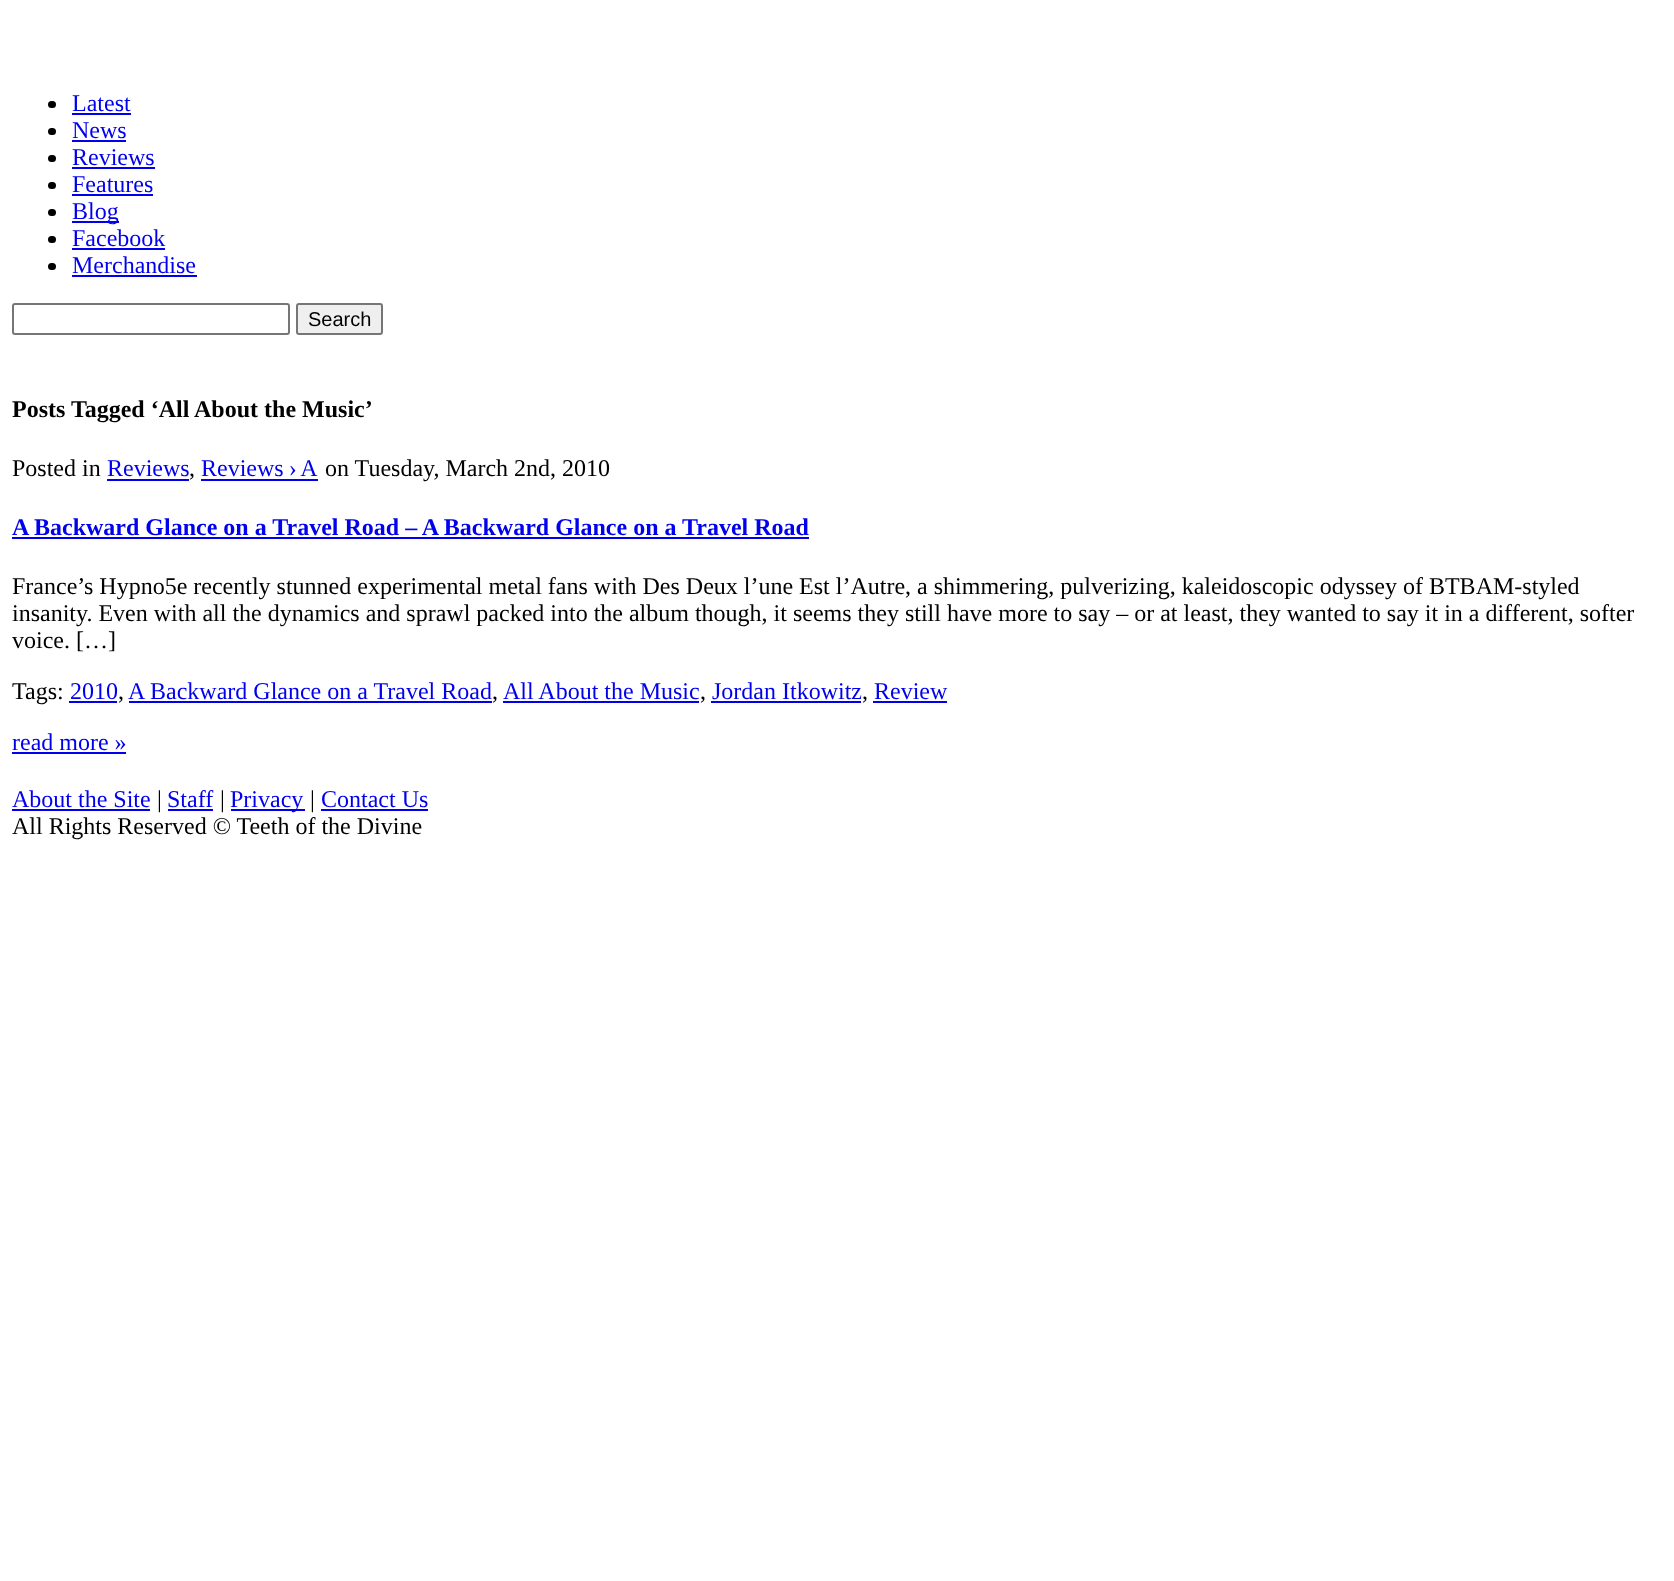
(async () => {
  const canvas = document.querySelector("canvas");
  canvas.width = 1674;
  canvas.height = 1581;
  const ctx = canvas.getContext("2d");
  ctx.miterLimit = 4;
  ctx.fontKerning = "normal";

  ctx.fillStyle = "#ffffff";
  ctx.fillRect(0, 0, 1674, 1581);
  ctx.fillStyle = "#000000";
  ctx.beginPath();
  ctx.roundRect(48, 101, 8, 7, 3.5);
  ctx.fill();
  ctx.fillStyle = "#0000ee";
  ctx.fillRect(72, 113, 59, 2);
  ctx.fillStyle = "#000000";
  ctx.beginPath();
  ctx.roundRect(48, 128, 8, 7, 3.5);
  ctx.fill();
  ctx.fillStyle = "#0000ee";
  ctx.fillRect(72, 140, 54, 2);
  ctx.fillStyle = "#000000";
  ctx.beginPath();
  ctx.roundRect(48, 155, 8, 7, 3.5);
  ctx.fill();
  ctx.fillStyle = "#0000ee";
  ctx.fillRect(72, 167, 83, 2);
  ctx.fillStyle = "#000000";
  ctx.beginPath();
  ctx.roundRect(48, 182, 8, 7, 3.5);
  ctx.fill();
  ctx.fillStyle = "#0000ee";
  ctx.fillRect(72, 194, 81, 2);
  ctx.fillStyle = "#000000";
  ctx.beginPath();
  ctx.roundRect(48, 209, 8, 7, 3.5);
  ctx.fill();
  ctx.fillStyle = "#0000ee";
  ctx.fillRect(72, 221, 47, 2);
  ctx.fillStyle = "#000000";
  ctx.beginPath();
  ctx.roundRect(48, 236, 8, 7, 3.5);
  ctx.fill();
  ctx.fillStyle = "#0000ee";
  ctx.fillRect(72, 248, 93, 2);
  ctx.fillStyle = "#000000";
  ctx.beginPath();
  ctx.roundRect(48, 263, 8, 7, 3.5);
  ctx.fill();
  ctx.fillStyle = "#0000ee";
  ctx.fillRect(72, 275, 125, 2);
  ctx.beginPath();
  ctx.roundRect(13, 304, 276, 30, 2);
  ctx.strokeStyle = "#767676";
  ctx.lineWidth = 2;
  ctx.stroke();
  ctx.fillStyle = "#efefef";
  ctx.beginPath();
  ctx.roundRect(297, 304, 85, 30, 2);
  ctx.fill();
  ctx.stroke();
  for (const [x, y, w, h, color] of [
    [107, 479, 82, 2, "#0000ee"],
    [201, 479, 117, 2, "#0000ee"],
    [12, 537, 797, 2, "#0000ee"],
    [69, 701, 48, 2, "#0000ee"],
    [129, 701, 363, 2, "#0000ee"],
    [503, 701, 196, 2, "#0000ee"],
    [711, 701, 150, 2, "#0000ee"],
    [873, 701, 74, 2, "#0000ee"],
    [12, 752, 114, 2, "#0000ee"],
    [12, 809, 138, 2, "#0000ee"],
    [168, 809, 45, 2, "#0000ee"],
    [231, 809, 74, 2, "#0000ee"],
    [321, 809, 107, 2, "#0000ee"],
  ]) {
    ctx.fillStyle = color;
    ctx.fillRect(x, y, w, h);
  }
  ctx.font = "24px Liberation Serif";
  for (const [text, x, y] of [
    ["Latest", 72, 111],
    ["News", 72, 138],
    ["Reviews", 72, 165],
    ["Features", 72, 192],
    ["Blog", 72, 219],
    ["Facebook", 72, 246],
    ["Merchandise", 72, 273],
  ]) {
    ctx.fillText(text, x, y);
  }
  ctx.font = "20px Liberation Sans";
  ctx.fillStyle = "#000000";
  ctx.fillText("Search", 308, 326);
  ctx.font = "bold 24px Liberation Serif";
  ctx.fillText("Posts Tagged ‘All About the Music’", 12, 417);
  ctx.font = "24px Liberation Serif";
  ctx.fillText("Posted in", 12, 476);
  ctx.fillStyle = "#0000ee";
  ctx.fillText("Reviews", 107, 476);
  ctx.fillStyle = "#000000";
  ctx.fillText(",", 189, 476);
  ctx.wordSpacing = "-1px";
  ctx.fillStyle = "#0000ee";
  ctx.fillText("Reviews › A", 201, 476);
  ctx.wordSpacing = "0px";
  ctx.fillStyle = "#000000";
  ctx.fillText("on Tuesday, March 2nd, 2010", 325, 476);
  ctx.font = "bold 24px Liberation Serif";
  ctx.fillStyle = "#0000ee";
  ctx.fillText("A Backward Glance on a Travel Road – A Backward Glance on a Travel Road", 12, 535);
  ctx.font = "24px Liberation Serif";
  ctx.fillStyle = "#000000";
  for (const [text, x, y] of [
    ["France’s Hypno5e recently stunned experimental metal fans with Des Deux l’une Est l’Autre, a shimmering, pulverizing, kaleidoscopic odyssey of BTBAM-styled", 12, 594],
    ["insanity. Even with all the dynamics and sprawl packed into the album though, it seems they still have more to say – or at least, they wanted to say it in a different, softer", 12, 621],
    ["voice. […]", 12, 648],
    ["Tags:", 12, 699],
  ]) {
    ctx.fillText(text, x, y);
  }
  ctx.fillStyle = "#0000ee";
  ctx.fillText("2010", 70, 699);
  ctx.fillStyle = "#000000";
  ctx.fillText(",", 118, 699);
  ctx.fillStyle = "#0000ee";
  ctx.fillText("A Backward Glance on a Travel Road", 128, 699);
  ctx.fillStyle = "#000000";
  ctx.fillText(",", 492, 699);
  ctx.fillStyle = "#0000ee";
  ctx.fillText("All About the Music", 503, 699);
  ctx.fillStyle = "#000000";
  ctx.fillText(",", 700, 699);
  ctx.fillStyle = "#0000ee";
  ctx.fillText("Jordan Itkowitz", 712, 699);
  ctx.fillStyle = "#000000";
  ctx.fillText(",", 862, 699);
  ctx.fillStyle = "#0000ee";
  for (const [text, x, y] of [
    ["Review", 874, 699],
    ["read more »", 12, 750],
    ["About the Site", 12, 807],
  ]) {
    ctx.fillText(text, x, y);
  }
  ctx.fillStyle = "#000000";
  ctx.fillText("|", 157, 807);
  ctx.fillStyle = "#0000ee";
  ctx.fillText("Staff", 167, 807);
  ctx.fillStyle = "#000000";
  ctx.fillText("|", 220, 807);
  ctx.fillStyle = "#0000ee";
  ctx.fillText("Privacy", 230, 807);
  ctx.fillStyle = "#000000";
  ctx.fillText("|", 310, 807);
  ctx.fillStyle = "#0000ee";
  ctx.fillText("Contact Us", 321, 807);
  ctx.fillStyle = "#000000";
  ctx.fillText("All Rights Reserved © Teeth of the Divine", 12, 834);
})();
